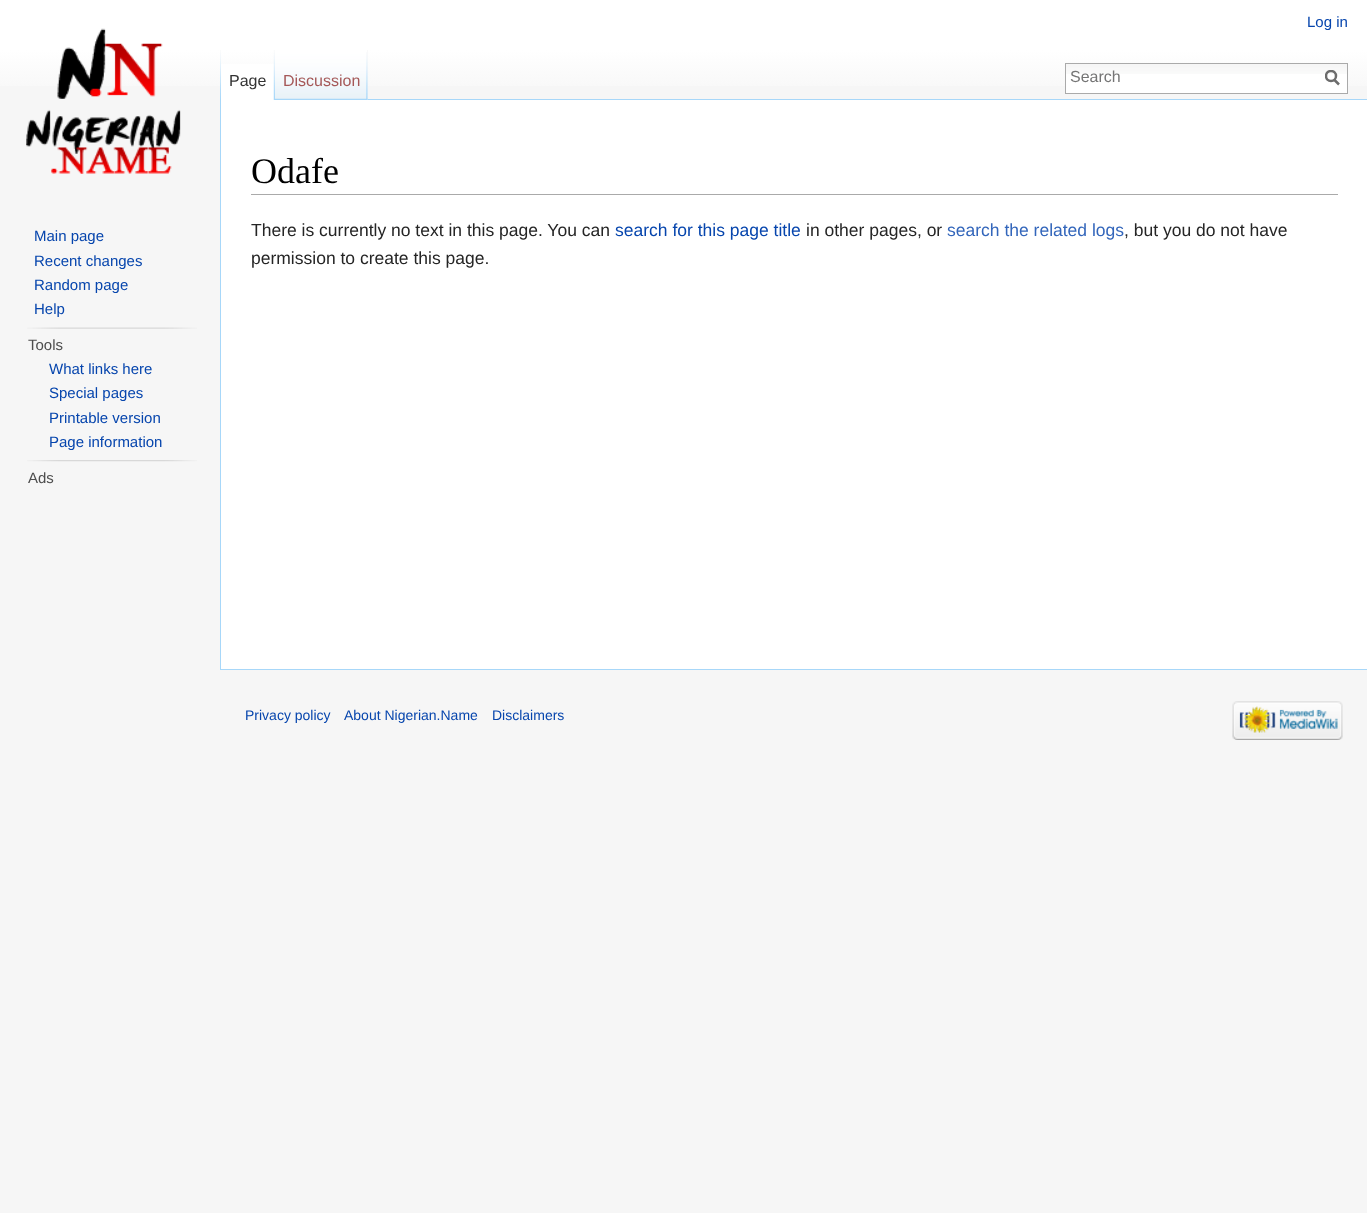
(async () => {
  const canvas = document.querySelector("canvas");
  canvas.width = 1367;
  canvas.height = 1213;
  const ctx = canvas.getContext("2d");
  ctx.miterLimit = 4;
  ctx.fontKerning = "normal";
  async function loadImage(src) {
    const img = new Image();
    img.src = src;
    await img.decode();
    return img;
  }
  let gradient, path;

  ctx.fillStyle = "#f6f6f6";
  ctx.fillRect(0, 0, 1367, 1213);
  gradient = ctx.createLinearGradient(684, 0, 684, 100);
  gradient.addColorStop(0.5, "#ffffff");
  gradient.addColorStop(1, "#f6f6f6");
  ctx.fillStyle = gradient;
  ctx.fillRect(0, 0, 1367, 86);
  ctx.drawImage(await loadImage("img/1.png"), 220, 50, 1, 49);
  ctx.fillStyle = "#ffffff";
  ctx.fillRect(221, 64, 53, 36);
  ctx.drawImage(await loadImage("img/2.png"), 273, 50, 2, 50);
  ctx.fillStyle = "#f3f3f3";
  ctx.fillRect(367, 50, 1, 50);
  ctx.drawImage(await loadImage("img/3.png"), 275, 50, 93, 50);
  ctx.drawImage(await loadImage("img/4.png"), 366, 52, 2, 48);
  ctx.fillStyle = "#ffffff";
  ctx.fillRect(1066, 74, 281, 19);
  ctx.drawImage(await loadImage("img/5.png"), 1066, 64, 281, 10);
  ctx.strokeStyle = "#aaaaaa";
  ctx.strokeRect(1065.5, 63.5, 282, 30);
  path = new Path2D("M1339 84.5L1334 79.5");
  ctx.strokeStyle = "#6c6c6c";
  ctx.lineWidth = 2.5;
  ctx.stroke(path);
  ctx.save();
  ctx.beginPath();
  ctx.rect(1325, 70, 15, 16);
  ctx.clip();
  ctx.beginPath();
  ctx.arc(1331, 76, 5, 0, Math.PI * 2);
  ctx.stroke();
  ctx.restore();
  ctx.drawImage(await loadImage("img/6.png"), 26, 28, 155, 146);
  ctx.drawImage(await loadImage("img/7.png"), 27, 327, 170, 2);
  ctx.drawImage(await loadImage("img/8.png"), 27, 460, 170, 2);
  for (const [x, y, w, h, color] of [
    [221, 100, 1146, 569, "#ffffff"],
    [368, 99, 999, 1, "#a7d7f9"],
    [220, 669, 1147, 1, "#a7d7f9"],
    [220, 99, 1, 571, "#a7d7f9"],
    [251, 194, 1087, 1, "#aaaaaa"],
  ]) {
    ctx.fillStyle = color;
    ctx.fillRect(x, y, w, h);
  }
  ctx.drawImage(await loadImage("img/9.png"), 1232, 701, 111, 39);
  ctx.font = "15px Liberation Sans";
  ctx.fillStyle = "#0645ad";
  ctx.fillText("Log in", 1307, 27);
  ctx.font = "16px Liberation Sans";
  ctx.fillStyle = "#333333";
  ctx.fillText("Page", 229, 86);
  ctx.fillStyle = "#a55858";
  ctx.fillText("Discussion", 283, 86);
  ctx.fillStyle = "#757575";
  ctx.fillText("Search", 1070, 82);
  ctx.font = "15px Liberation Sans";
  ctx.fillStyle = "#0645ad";
  for (const [text, x, y] of [
    ["Main page", 34, 241],
    ["Recent changes", 34, 266],
    ["Random page", 34, 290],
    ["Help", 34, 314],
  ]) {
    ctx.fillText(text, x, y);
  }
  ctx.fillStyle = "#4d4d4d";
  ctx.fillText("Tools", 28, 350);
  ctx.fillStyle = "#0645ad";
  for (const [text, x, y] of [
    ["What links here", 49, 374],
    ["Special pages", 49, 398],
    ["Printable version", 49, 423],
    ["Page information", 49, 447],
  ]) {
    ctx.fillText(text, x, y);
  }
  ctx.fillStyle = "#4d4d4d";
  ctx.fillText("Ads", 28, 483);
  ctx.font = "36px Liberation Serif";
  ctx.fillStyle = "#000000";
  ctx.fillText("Odafe", 251, 183);
  ctx.font = "17.5px Liberation Sans";
  ctx.fillStyle = "#252525";
  ctx.fillText("There is currently no text in this page. You can", 251, 236);
  ctx.fillStyle = "#0645ad";
  ctx.fillText("search for this page title", 615, 236);
  ctx.fillStyle = "#252525";
  ctx.fillText("in other pages, or", 806, 236);
  ctx.fillStyle = "#3366bb";
  ctx.fillText("search the related logs", 947, 236);
  ctx.fillStyle = "#252525";
  ctx.fillText(", but you do not have", 1124, 236);
  ctx.fillText("permission to create this page.", 251, 264);
  ctx.font = "14px Liberation Sans";
  ctx.fillStyle = "#0645ad";
  for (const [text, x, y] of [
    ["Privacy policy", 245, 720],
    ["About Nigerian.Name", 344, 720],
    ["Disclaimers", 492, 720],
  ]) {
    ctx.fillText(text, x, y);
  }
})();
